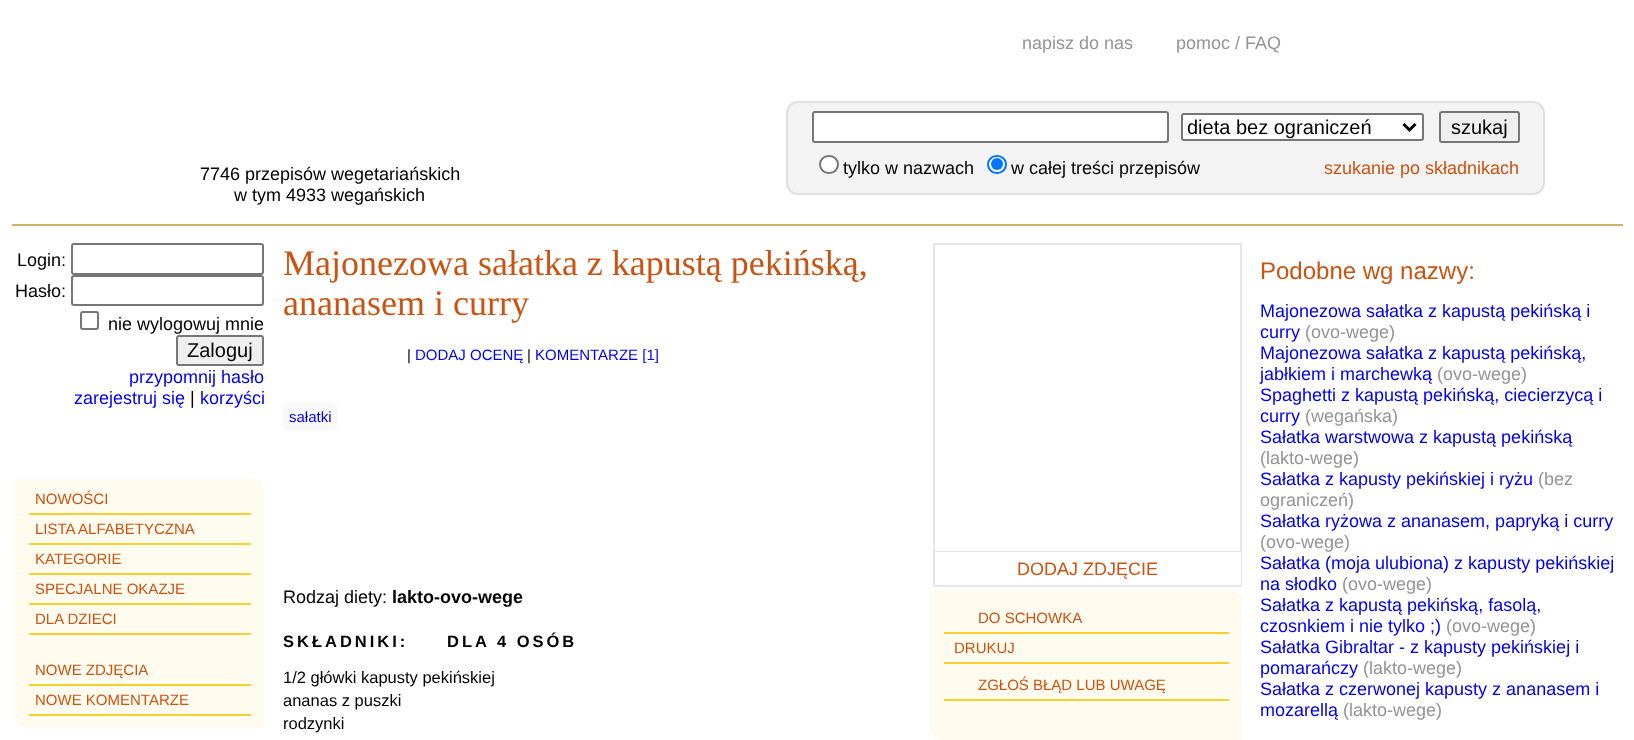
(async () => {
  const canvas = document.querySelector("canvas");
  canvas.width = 1634;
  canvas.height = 740;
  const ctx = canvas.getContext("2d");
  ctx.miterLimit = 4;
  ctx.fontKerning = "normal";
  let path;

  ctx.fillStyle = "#ffffff";
  ctx.fillRect(0, 0, 1634, 740);
  ctx.fillStyle = "#ceb16d";
  ctx.fillRect(12, 224, 1611, 2);
  ctx.fillStyle = "#f3f3f3";
  ctx.beginPath();
  ctx.roundRect(787, 102, 757, 92, 11);
  ctx.fill();
  ctx.strokeStyle = "#dfdfdf";
  ctx.lineWidth = 2;
  ctx.stroke();
  ctx.fillStyle = "#ffffff";
  ctx.beginPath();
  ctx.roundRect(813, 112, 355, 30, 2);
  ctx.fill();
  ctx.strokeStyle = "#767676";
  ctx.stroke();
  ctx.beginPath();
  ctx.roundRect(1182, 114, 241, 26, 2);
  ctx.fill();
  ctx.stroke();
  path = new Path2D("M1403.5 124L1409.5 130L1415.5 124");
  ctx.strokeStyle = "#000000";
  ctx.lineWidth = 3;
  ctx.stroke(path);
  ctx.fillStyle = "#efefef";
  ctx.beginPath();
  ctx.roundRect(1440, 112, 79, 30, 2);
  ctx.fill();
  ctx.strokeStyle = "#767676";
  ctx.lineWidth = 2;
  ctx.stroke();
  ctx.fillStyle = "#ffffff";
  ctx.beginPath();
  ctx.roundRect(820, 156, 18, 17, 8.5);
  ctx.fill();
  ctx.stroke();
  ctx.beginPath();
  ctx.roundRect(988, 156, 18, 17, 8.5);
  ctx.fill();
  ctx.strokeStyle = "#0075ff";
  ctx.stroke();
  ctx.fillStyle = "#0075ff";
  ctx.beginPath();
  ctx.arc(997, 164, 6, 0, Math.PI * 2);
  ctx.fill();
  ctx.beginPath();
  ctx.roundRect(72, 244, 191, 30, 2);
  ctx.strokeStyle = "#767676";
  ctx.stroke();
  ctx.beginPath();
  ctx.roundRect(72, 276, 191, 29, 2);
  ctx.stroke();
  ctx.beginPath();
  ctx.roundRect(81, 312, 17, 17, 2);
  ctx.stroke();
  ctx.fillStyle = "#efefef";
  ctx.beginPath();
  ctx.roundRect(177, 336, 86, 29, 2);
  ctx.fill();
  ctx.stroke();
  ctx.fillStyle = "#fffcef";
  ctx.beginPath();
  ctx.roundRect(15, 479, 249, 249, [0, 12, 0, 12]);
  ctx.fill();
  for (const [x, y, w, h, color] of [
    [29, 513, 222, 2, "#f7cf2e"],
    [29, 543, 222, 2, "#f7cf2e"],
    [29, 573, 222, 2, "#f7cf2e"],
    [29, 603, 222, 2, "#f7cf2e"],
    [29, 633, 222, 2, "#f7cf2e"],
    [29, 684, 222, 2, "#f7cf2e"],
    [29, 714, 222, 2, "#f7cf2e"],
  ]) {
    ctx.fillStyle = color;
    ctx.fillRect(x, y, w, h);
  }
  ctx.fillStyle = "#f9f9f9";
  ctx.beginPath();
  ctx.roundRect(282, 402, 56, 29, 8);
  ctx.fill();
  ctx.strokeStyle = "#e6e6e6";
  ctx.strokeRect(934, 244, 307, 342);
  ctx.fillStyle = "#e6e6e6";
  ctx.fillRect(935, 551, 306, 1);
  ctx.fillStyle = "#fdfdfd";
  ctx.fillRect(1240, 552, 1, 33);
  ctx.fillStyle = "#fffcef";
  ctx.beginPath();
  ctx.roundRect(930, 590, 312, 150, [0, 12, 0, 12]);
  ctx.fill();
  for (const [x, y, w, h, color] of [
    [944, 632, 285, 2, "#f7cf2e"],
    [944, 662, 285, 2, "#f7cf2e"],
    [944, 699, 285, 2, "#f7cf2e"],
  ]) {
    ctx.fillStyle = color;
    ctx.fillRect(x, y, w, h);
  }
  ctx.font = "18px Liberation Sans";
  ctx.fillStyle = "#949494";
  ctx.fillText("napisz do nas", 1022, 49);
  ctx.fillText("pomoc / FAQ", 1176, 49);
  ctx.fillStyle = "#000000";
  ctx.fillText("7746 przepisów wegetariańskich", 200, 180);
  ctx.fillText("w tym 4933 wegańskich", 234, 201);
  ctx.font = "20px Liberation Sans";
  ctx.fillText("dieta bez ograniczeń", 1187, 134);
  ctx.fillText("szukaj", 1451, 134);
  ctx.font = "18px Liberation Sans";
  ctx.fillText("tylko w nazwach", 843, 174);
  ctx.fillText("w całej treści przepisów", 1011, 174);
  ctx.fillStyle = "#ca5311";
  ctx.fillText("szukanie po składnikach", 1324, 174);
  ctx.fillStyle = "#000000";
  for (const [text, x, y] of [
    ["Login:", 17, 266],
    ["Hasło:", 15, 297],
    ["nie wylogowuj mnie", 108, 330],
  ]) {
    ctx.fillText(text, x, y);
  }
  ctx.font = "20px Liberation Sans";
  ctx.fillText("Zaloguj", 187, 357);
  ctx.font = "18px Liberation Sans";
  ctx.fillStyle = "#0000ee";
  ctx.fillText("przypomnij hasło", 129, 383);
  ctx.fillText("zarejestruj się", 74, 404);
  ctx.fillStyle = "#000000";
  ctx.fillText("|", 190, 404);
  ctx.fillStyle = "#0000ee";
  ctx.fillText("korzyści", 200, 404);
  ctx.font = "15px Liberation Sans";
  ctx.fillStyle = "#ca5311";
  for (const [text, x, y] of [
    ["NOWOŚCI", 35, 504],
    ["LISTA ALFABETYCZNA", 35, 534],
    ["KATEGORIE", 35, 564],
    ["SPECJALNE OKAZJE", 35, 594],
    ["DLA DZIECI", 35, 624],
    ["NOWE ZDJĘCIA", 35, 675],
    ["NOWE KOMENTARZE", 35, 705],
  ]) {
    ctx.fillText(text, x, y);
  }
  ctx.font = "36px Liberation Serif";
  ctx.fillText("Majonezowa sałatka z kapustą pekińską,", 283, 275);
  ctx.fillText("ananasem i curry", 283, 315);
  ctx.font = "15px Liberation Sans";
  ctx.fillStyle = "#000000";
  ctx.fillText("|", 407, 360);
  ctx.fillStyle = "#0000ee";
  ctx.fillText("DODAJ OCENĘ", 415, 360);
  ctx.fillStyle = "#000000";
  ctx.fillText("|", 527, 360);
  ctx.fillStyle = "#0000ee";
  ctx.fillText("KOMENTARZE [1]", 535, 360);
  ctx.fillText("sałatki", 289, 422);
  ctx.font = "18px Liberation Sans";
  ctx.fillStyle = "#ca5311";
  ctx.fillText("DODAJ ZDJĘCIE", 1017, 575);
  ctx.fillStyle = "#000000";
  ctx.fillText("Rodzaj diety:", 283, 603);
  ctx.font = "bold 18px Liberation Sans";
  ctx.fillText("lakto-ovo-wege", 392, 603);
  ctx.letterSpacing = "3px";
  ctx.font = "bold 16.5px Liberation Sans";
  ctx.fillText("SKŁADNIKI:", 283, 647);
  ctx.fillText("DLA 4 OSÓB", 447, 647);
  ctx.letterSpacing = "0px";
  ctx.font = "16.5px Liberation Sans";
  for (const [text, x, y] of [
    ["1/2 główki kapusty pekińskiej", 283, 683],
    ["ananas z puszki", 283, 706],
    ["rodzynki", 283, 729],
  ]) {
    ctx.fillText(text, x, y);
  }
  ctx.font = "15px Liberation Sans";
  ctx.fillStyle = "#ca5311";
  for (const [text, x, y] of [
    ["DO SCHOWKA", 978, 623],
    ["DRUKUJ", 954, 653],
    ["ZGŁOŚ BŁĄD LUB UWAGĘ", 978, 690],
  ]) {
    ctx.fillText(text, x, y);
  }
  ctx.font = "24px Liberation Sans";
  ctx.fillText("Podobne wg nazwy:", 1260, 279);
  ctx.font = "18px Liberation Sans";
  ctx.fillStyle = "#0000ee";
  ctx.fillText("Majonezowa sałatka z kapustą pekińską i", 1260, 317);
  ctx.fillText("curry", 1260, 338);
  ctx.fillStyle = "#949494";
  ctx.fillText("(ovo-wege)", 1305, 338);
  ctx.fillStyle = "#0000ee";
  ctx.fillText("Majonezowa sałatka z kapustą pekińską,", 1260, 359);
  ctx.fillText("jabłkiem i marchewką", 1260, 380);
  ctx.fillStyle = "#949494";
  ctx.fillText("(ovo-wege)", 1437, 380);
  ctx.fillStyle = "#0000ee";
  ctx.fillText("Spaghetti z kapustą pekińską, ciecierzycą i", 1260, 401);
  ctx.fillText("curry", 1260, 422);
  ctx.fillStyle = "#949494";
  ctx.fillText("(wegańska)", 1305, 422);
  ctx.fillStyle = "#0000ee";
  ctx.fillText("Sałatka warstwowa z kapustą pekińską", 1260, 443);
  ctx.fillStyle = "#949494";
  ctx.fillText("(lakto-wege)", 1260, 464);
  ctx.fillStyle = "#0000ee";
  ctx.fillText("Sałatka z kapusty pekińskiej i ryżu", 1260, 485);
  ctx.fillStyle = "#949494";
  ctx.fillText("(bez", 1538, 485);
  ctx.fillText("ograniczeń)", 1260, 506);
  ctx.fillStyle = "#0000ee";
  ctx.fillText("Sałatka ryżowa z ananasem, papryką i curry", 1260, 527);
  ctx.fillStyle = "#949494";
  ctx.fillText("(ovo-wege)", 1260, 548);
  ctx.fillStyle = "#0000ee";
  ctx.fillText("Sałatka (moja ulubiona) z kapusty pekińskiej", 1260, 569);
  ctx.fillText("na słodko", 1260, 590);
  ctx.fillStyle = "#949494";
  ctx.fillText("(ovo-wege)", 1342, 590);
  ctx.fillStyle = "#0000ee";
  ctx.fillText("Sałatka z kapustą pekińską, fasolą,", 1260, 611);
  ctx.fillText("czosnkiem i nie tylko ;)", 1260, 632);
  ctx.fillStyle = "#949494";
  ctx.fillText("(ovo-wege)", 1446, 632);
  ctx.fillStyle = "#0000ee";
  ctx.fillText("Sałatka Gibraltar - z kapusty pekińskiej i", 1260, 653);
  ctx.fillText("pomarańczy", 1260, 674);
  ctx.fillStyle = "#949494";
  ctx.fillText("(lakto-wege)", 1363, 674);
  ctx.fillStyle = "#0000ee";
  ctx.fillText("Sałatka z czerwonej kapusty z ananasem i", 1260, 695);
  ctx.fillText("mozarellą", 1260, 716);
  ctx.fillStyle = "#949494";
  ctx.fillText("(lakto-wege)", 1343, 716);
})();
